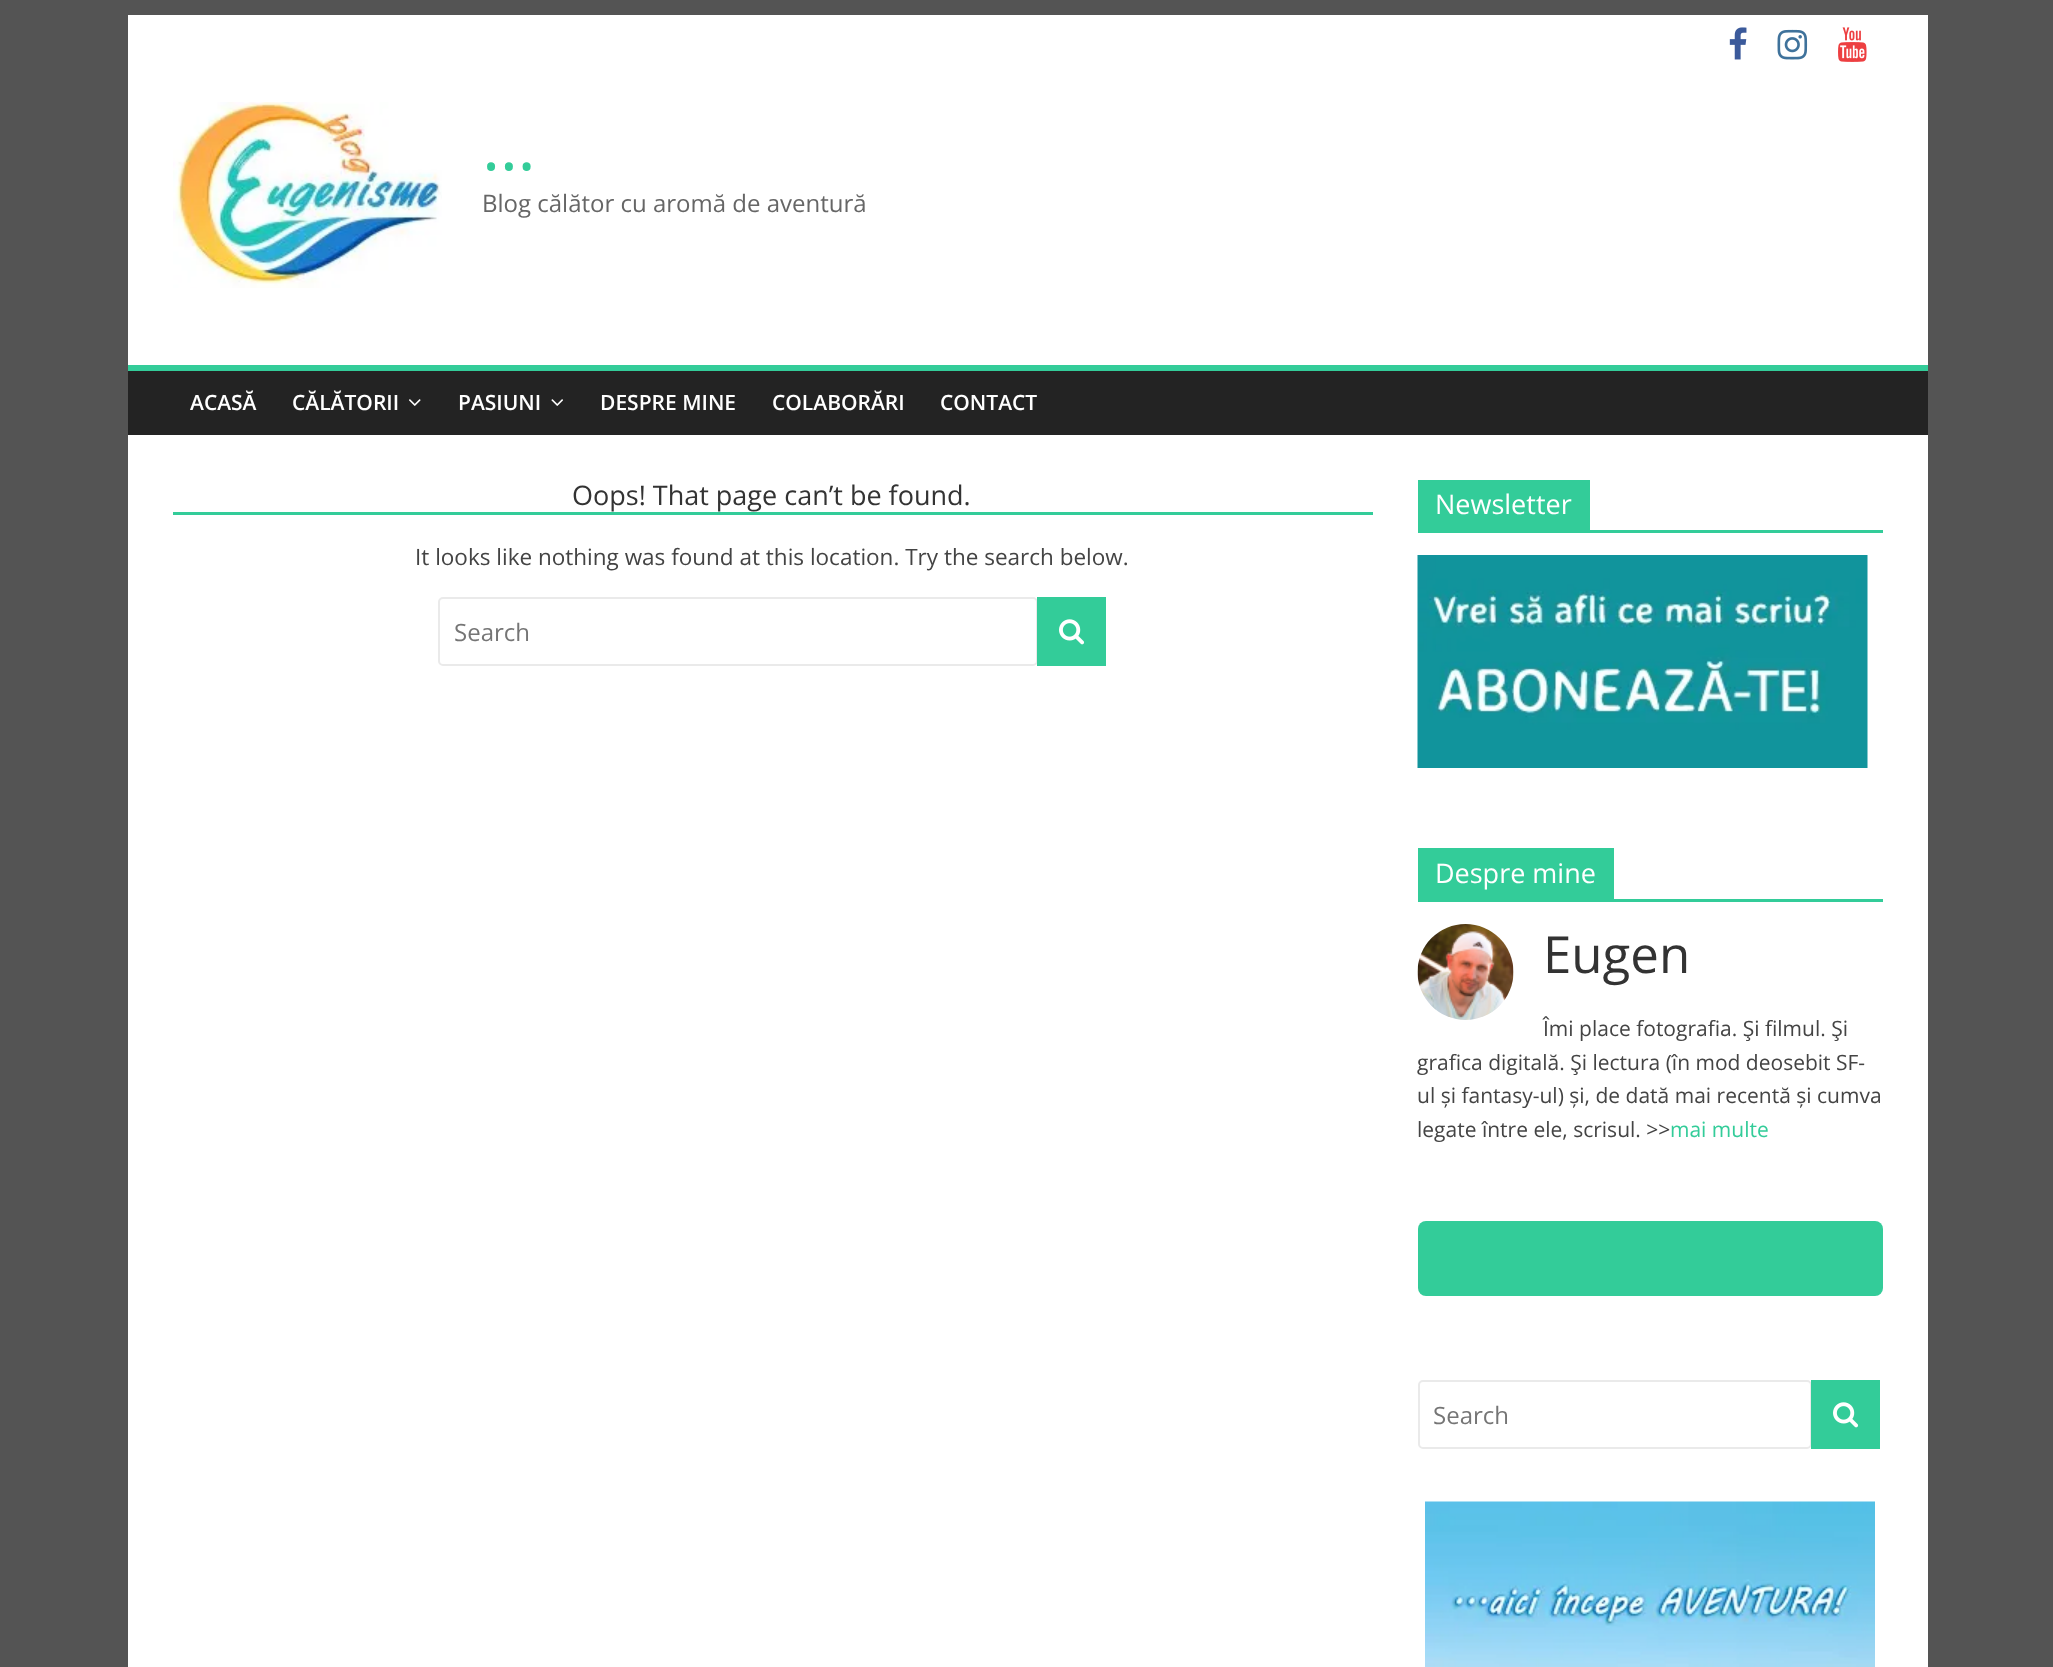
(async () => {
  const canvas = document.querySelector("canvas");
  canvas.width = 2053;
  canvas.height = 1667;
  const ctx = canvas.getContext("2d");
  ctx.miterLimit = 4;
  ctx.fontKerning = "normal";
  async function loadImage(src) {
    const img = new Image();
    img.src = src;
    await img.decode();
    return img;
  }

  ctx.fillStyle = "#545454";
  ctx.fillRect(0, 0, 2053, 1667);
  ctx.fillStyle = "#ffffff";
  ctx.fillRect(128, 15, 1800, 350);
  ctx.drawImage(await loadImage("img/1.png"), 1729, 27, 18, 33);
  ctx.drawImage(await loadImage("img/2.png"), 1777, 29, 31, 31);
  ctx.drawImage(await loadImage("img/3.png"), 1838, 27, 29, 35);
  ctx.drawImage(await loadImage("img/4.png"), 173, 102, 269, 186);
  ctx.fillStyle = "#232323";
  ctx.fillRect(128, 371, 1800, 64);
  ctx.fillStyle = "#33cc99";
  ctx.fillRect(128, 365, 1800, 6);
  ctx.drawImage(await loadImage("img/5.png"), 409, 399, 12, 7);
  ctx.drawImage(await loadImage("img/6.png"), 551, 399, 12, 7);
  ctx.fillStyle = "#ffffff";
  ctx.fillRect(128, 435, 1800, 1232);
  ctx.fillStyle = "#33cc99";
  ctx.fillRect(173, 512, 1200, 3);
  ctx.beginPath();
  ctx.roundRect(439, 598, 598, 67, 4);
  ctx.strokeStyle = "#eaeaea";
  ctx.lineWidth = 2;
  ctx.stroke();
  ctx.fillRect(1037, 597, 69, 69);
  ctx.drawImage(await loadImage("img/7.png"), 1059, 619, 26, 26);
  ctx.fillRect(1418, 530, 465, 3);
  ctx.fillRect(1418, 480, 172, 50);
  ctx.drawImage(await loadImage("img/8.png"), 1417, 555, 451, 213);
  ctx.fillRect(1418, 899, 465, 3);
  ctx.fillRect(1418, 848, 196, 51);
  ctx.drawImage(await loadImage("img/9.png"), 1417, 924, 97, 96);
  ctx.beginPath();
  ctx.roundRect(1418, 1221, 465, 75, 8);
  ctx.fill();
  ctx.beginPath();
  ctx.roundRect(1419, 1381, 392, 67, 4);
  ctx.stroke();
  ctx.fillRect(1811, 1380, 69, 69);
  ctx.drawImage(await loadImage("img/7.png"), 1833, 1402, 26, 26);
  ctx.drawImage(await loadImage("img/10.png"), 1425, 1501, 450, 166);
  ctx.font = "69px Open Sans";
  ctx.fillText("…", 482, 170);
  ctx.font = "24px Open Sans";
  ctx.fillStyle = "#666666";
  ctx.fillText("Blog călător cu aromă de aventură", 482, 212);
  ctx.font = "600 21px Open Sans";
  ctx.fillStyle = "#ffffff";
  for (const [text, x, y] of [
    ["ACASĂ", 190, 410],
    ["CĂLĂTORII", 292, 410],
    ["PASIUNI", 458, 410],
    ["DESPRE MINE", 600, 410],
    ["COLABORĂRI", 772, 410],
    ["CONTACT", 940, 410],
  ]) {
    ctx.fillText(text, x, y);
  }
  ctx.font = "27px Open Sans";
  ctx.fillStyle = "#333333";
  ctx.fillText("Oops! That page can’t be found.", 572, 505);
  ctx.font = "22.5px Open Sans";
  ctx.fillStyle = "#444444";
  ctx.fillText("It looks like nothing was found at this location. Try the search below.", 415, 565);
  ctx.font = "24px Open Sans";
  ctx.fillStyle = "#757575";
  ctx.fillText("Search", 454, 641);
  ctx.font = "27px Open Sans";
  ctx.fillStyle = "#ffffff";
  ctx.fillText("Newsletter", 1435, 514);
  ctx.fillText("Despre mine", 1435, 883);
  ctx.font = "51px Open Sans";
  ctx.fillStyle = "#333333";
  ctx.fillText("Eugen", 1543, 973);
  ctx.font = "21px Open Sans";
  ctx.fillStyle = "#444444";
  for (const [text, x, y] of [
    ["Îmi place fotografia. Şi filmul. Şi", 1543, 1036],
    ["grafica digitală. Şi lectura (în mod deosebit SF-", 1417, 1070],
    ["ul și fantasy-ul) și, de dată mai recentă și cumva", 1417, 1103],
    ["legate între ele, scrisul. >>", 1417, 1137],
  ]) {
    ctx.fillText(text, x, y);
  }
  ctx.fillStyle = "#33cc99";
  ctx.fillText("mai multe", 1670, 1137);
  ctx.font = "24px Open Sans";
  ctx.fillStyle = "#757575";
  ctx.fillText("Search", 1433, 1424);
})();
